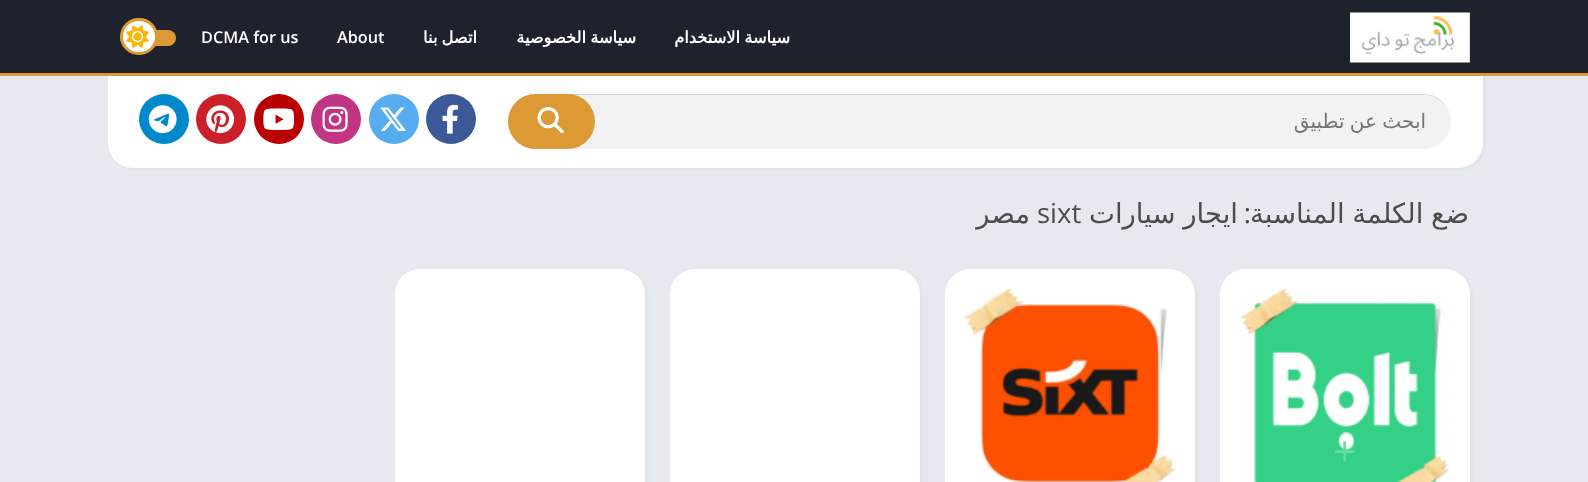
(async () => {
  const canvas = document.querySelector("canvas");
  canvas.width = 1588;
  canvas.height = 482;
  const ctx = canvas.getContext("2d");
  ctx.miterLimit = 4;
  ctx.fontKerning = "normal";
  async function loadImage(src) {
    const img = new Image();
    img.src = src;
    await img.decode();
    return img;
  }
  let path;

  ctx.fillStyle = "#e6e9ef";
  ctx.fillRect(0, 0, 1588, 482);
  ctx.fillStyle = "#e3e3e3";
  ctx.filter = "blur(1px)";
  ctx.beginPath();
  ctx.roundRect(110, 3, 1375, 167, 25);
  ctx.fill();
  ctx.filter = "none";
  ctx.fillStyle = "#ffffff";
  ctx.beginPath();
  ctx.roundRect(108, 0, 1375, 168, [0, 0, 25, 25]);
  ctx.fill();
  ctx.fillStyle = "#1d222d";
  ctx.fillRect(0, 0, 1588, 73);
  ctx.fillStyle = "#dd9933";
  ctx.fillRect(0, 73, 1588, 3);
  ctx.drawImage(await loadImage("img/1.png"), 1350, 12, 120, 51);
  ctx.beginPath();
  ctx.roundRect(120, 30, 56, 16, 8);
  ctx.fill();
  ctx.fillStyle = "#ffffff";
  ctx.beginPath();
  ctx.roundRect(121.5, 19.5, 35, 34, 17);
  ctx.fill();
  ctx.strokeStyle = "#dd9933";
  ctx.lineWidth = 3;
  ctx.stroke();
  ctx.drawImage(await loadImage("img/2.png"), 126, 25, 23, 23);
  ctx.fillStyle = "#f2f2f2";
  ctx.beginPath();
  ctx.roundRect(508, 94, 943, 55, 27.5);
  ctx.fill();
  ctx.fillStyle = "rgba(0, 0, 0, 0.12)";
  path = new Path2D("M535 95H1424C1439 95 1451 107 1451 122C1451 111 1444 100 1434 96C1431 95 1427 94 1424 94H536C520 94 508 107 508 122C508 107 520 95 535 95Z");
  ctx.fill(path);
  ctx.fillStyle = "#dd9933";
  ctx.beginPath();
  ctx.roundRect(508, 94, 87, 55, 27.5);
  ctx.fill();
  ctx.drawImage(await loadImage("img/3.png"), 537, 107, 27, 27);
  ctx.fillStyle = "#3b5998";
  ctx.beginPath();
  ctx.arc(451, 119, 25, 0, Math.PI * 2);
  ctx.fill();
  ctx.drawImage(await loadImage("img/4.png"), 442, 104, 16, 30);
  ctx.fillStyle = "#55acee";
  ctx.beginPath();
  ctx.arc(394, 119, 25, 0, Math.PI * 2);
  ctx.fill();
  ctx.drawImage(await loadImage("img/5.png"), 380, 107, 26, 24);
  ctx.fillStyle = "#c13584";
  ctx.beginPath();
  ctx.arc(336, 119, 25, 0, Math.PI * 2);
  ctx.fill();
  ctx.drawImage(await loadImage("img/6.png"), 322, 106, 26, 26);
  ctx.fillStyle = "#bb0000";
  ctx.beginPath();
  ctx.arc(279, 119, 25, 0, Math.PI * 2);
  ctx.fill();
  ctx.drawImage(await loadImage("img/7.png"), 263, 108, 31, 22);
  ctx.fillStyle = "#cb2027";
  ctx.beginPath();
  ctx.arc(221, 119, 25, 0, Math.PI * 2);
  ctx.fill();
  ctx.drawImage(await loadImage("img/8.png"), 206, 105, 29, 29);
  ctx.fillStyle = "#0088cc";
  ctx.beginPath();
  ctx.arc(164, 119, 25, 0, Math.PI * 2);
  ctx.fill();
  ctx.drawImage(await loadImage("img/9.png"), 148, 105, 29, 29);
  ctx.fillStyle = "#eaeaea";
  ctx.fillRect(120, 243, 1350, 1);
  ctx.fillStyle = "#e3e3e3";
  ctx.filter = "blur(1px)";
  ctx.beginPath();
  ctx.roundRect(1223, 271, 250, 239, 25);
  ctx.fill();
  ctx.filter = "none";
  ctx.fillStyle = "#ffffff";
  ctx.beginPath();
  ctx.roundRect(1220, 269, 250, 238, 25);
  ctx.fill();
  ctx.drawImage(await loadImage("img/10.png"), 1239, 288, 211, 194);
  ctx.fillStyle = "#e3e3e3";
  ctx.filter = "blur(1px)";
  ctx.beginPath();
  ctx.roundRect(948, 271, 250, 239, 25);
  ctx.fill();
  ctx.filter = "none";
  ctx.fillStyle = "#ffffff";
  ctx.beginPath();
  ctx.roundRect(945, 269, 250, 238, 25);
  ctx.fill();
  ctx.drawImage(await loadImage("img/11.png"), 964, 288, 212, 194);
  ctx.fillStyle = "#e3e3e3";
  ctx.filter = "blur(1px)";
  ctx.beginPath();
  ctx.roundRect(673, 271, 250, 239, 25);
  ctx.fill();
  ctx.filter = "none";
  ctx.fillStyle = "#ffffff";
  ctx.beginPath();
  ctx.roundRect(670, 269, 250, 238, 25);
  ctx.fill();
  ctx.fillStyle = "#e3e3e3";
  ctx.filter = "blur(1px)";
  ctx.beginPath();
  ctx.roundRect(398, 271, 250, 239, 25);
  ctx.fill();
  ctx.filter = "none";
  ctx.fillStyle = "#ffffff";
  ctx.beginPath();
  ctx.roundRect(395, 269, 250, 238, 25);
  ctx.fill();
  ctx.wordSpacing = "-1px";
  ctx.direction = "rtl";
  ctx.font = "bold 16.25px DejaVu Sans";
  for (const [text, x, y] of [
    ["سياسة الاستخدام", 790, 43],
    ["سياسة الخصوصية", 636, 43],
    ["اتصل بنا", 477, 43],
  ]) {
    ctx.fillText(text, x, y);
  }
  ctx.wordSpacing = "0px";
  ctx.direction = "ltr";
  ctx.font = "600 16.25px Open Sans";
  ctx.fillText("About", 337, 43);
  ctx.fillText("DCMA for us", 201, 43);
  ctx.wordSpacing = "-1px";
  ctx.direction = "rtl";
  ctx.font = "20px DejaVu Sans";
  ctx.fillStyle = "#757575";
  ctx.fillText("ابحث عن تطبيق", 1426, 128);
  ctx.font = "27.5px DejaVu Sans";
  ctx.fillStyle = "#4c4c4c";
  ctx.fillText("ضع الكلمة المناسبة", 1469, 223);
  ctx.wordSpacing = "0px";
  ctx.font = "27.5px Open Sans";
  ctx.fillText(":", 1251, 223);
  ctx.wordSpacing = "-1px";
  ctx.font = "27.5px DejaVu Sans";
  ctx.fillText("ايجار سيارات", 1238, 223);
  ctx.wordSpacing = "0px";
  ctx.direction = "ltr";
  ctx.font = "27.5px Open Sans";
  ctx.fillText("sixt", 1037, 223);
  ctx.direction = "rtl";
  ctx.font = "27.5px DejaVu Sans";
  ctx.fillText("مصر", 1030, 223);
  ctx.direction = "ltr";
  ctx.font = "41px Open Sans";
  ctx.fillStyle = "#64dba2";
  ctx.fillText("+", 1333, 466);
})();
